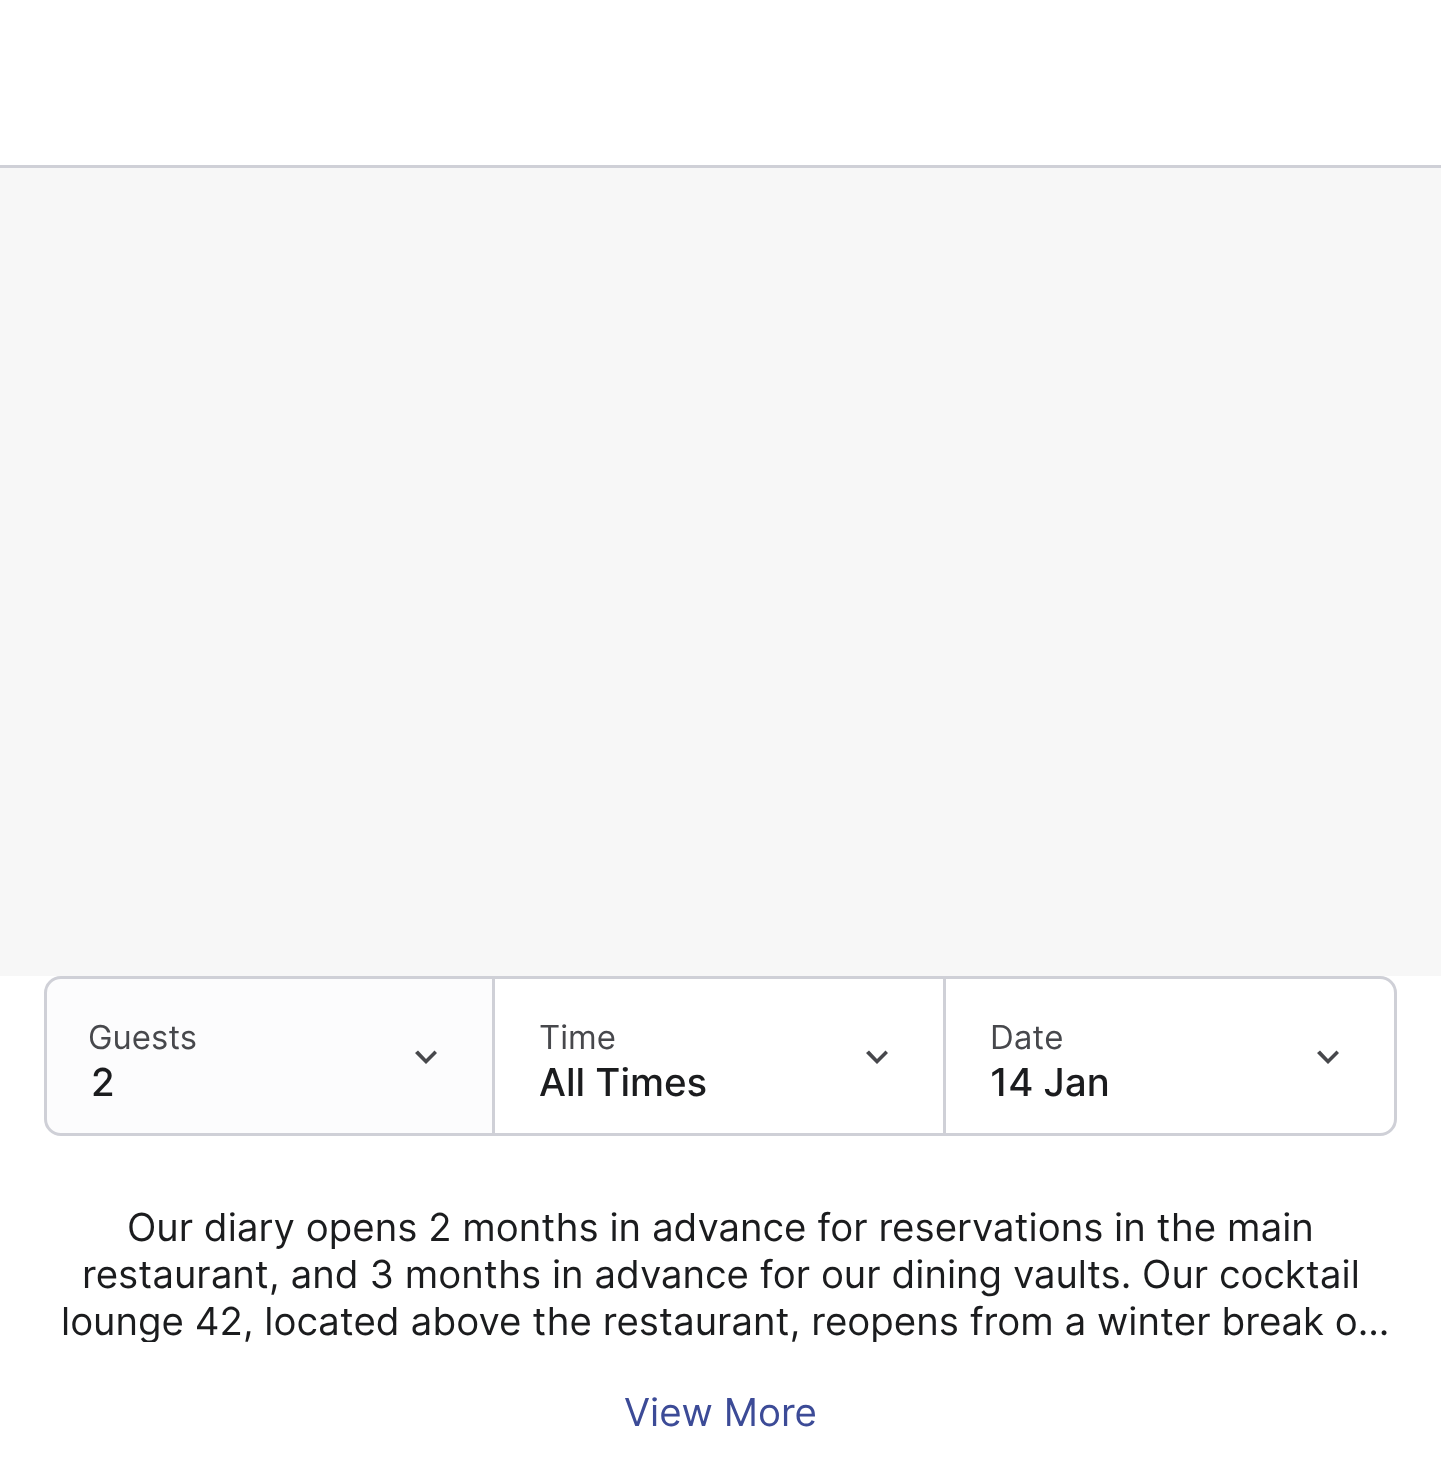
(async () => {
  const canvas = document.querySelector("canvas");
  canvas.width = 1441;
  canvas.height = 1478;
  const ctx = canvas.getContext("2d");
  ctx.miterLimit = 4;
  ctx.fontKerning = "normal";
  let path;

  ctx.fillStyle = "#f7f7f7";
  ctx.fillRect(0, 0, 1441, 1478);
  for (const [x, y, w, h, color] of [
    [0, 0, 1441, 165, "#ffffff"],
    [0, 165, 1441, 3, "#cfd0d7"],
    [0, 976, 1441, 502, "#ffffff"],
  ]) {
    ctx.fillStyle = color;
    ctx.fillRect(x, y, w, h);
  }
  ctx.strokeStyle = "#cfd0d7";
  ctx.lineWidth = 3;
  ctx.strokeRect(493.5, 977.5, 451, 157);
  ctx.fillStyle = "#fcfcfd";
  ctx.beginPath();
  ctx.roundRect(45.5, 977.5, 448, 157, [15.5, 0, 0, 15.5]);
  ctx.fill();
  ctx.stroke();
  ctx.fillStyle = "#47484c";
  path = new Path2D("M426 1064L415 1053L418 1050.5L426 1059L434.5 1050.5L437 1053Z");
  ctx.fill(path);
  path = new Path2D("M877 1064L866 1053L869 1050.5L877 1059L885.5 1050.5L888 1053Z");
  ctx.fill(path);
  ctx.fillStyle = "#ffffff";
  ctx.beginPath();
  ctx.roundRect(944.5, 977.5, 451, 157, [0, 15.5, 15.5, 0]);
  ctx.fill();
  ctx.stroke();
  ctx.fillStyle = "#47484c";
  path = new Path2D("M1328 1064L1317 1053L1320 1050.5L1328 1059L1336.5 1050.5L1339 1053Z");
  ctx.fill(path);
  ctx.font = "33px Inter";
  ctx.fillText("Guests", 88, 1049);
  ctx.font = "500 38.5px Inter";
  ctx.fillStyle = "#1b1c1e";
  ctx.fillText("2", 91, 1096);
  ctx.font = "33px Inter";
  ctx.fillStyle = "#47484c";
  ctx.fillText("Time", 539, 1049);
  ctx.font = "500 38.5px Inter";
  ctx.fillStyle = "#1b1c1e";
  ctx.fillText("All Times", 539, 1096);
  ctx.font = "33px Inter";
  ctx.fillStyle = "#47484c";
  ctx.fillText("Date", 990, 1049);
  ctx.font = "500 38.5px Inter";
  ctx.fillStyle = "#1b1c1e";
  ctx.fillText("14 Jan", 990, 1096);
  ctx.font = "38.5px Inter";
  ctx.fillText("Our diary opens 2 months in advance for reservations in the main", 127, 1241);
  ctx.fillText("restaurant, and 3 months in advance for our dining vaults. Our cocktail", 82, 1288);
  ctx.save();
  ctx.beginPath();
  ctx.rect(44, 1202, 1353, 140);
  ctx.clip();
  ctx.fillText("lounge 42, located above the restaurant, reopens from a winter break o…", 61, 1335);
  ctx.restore();
  ctx.fillStyle = "#3c4b97";
  ctx.fillText("View More", 624, 1426);
})();
